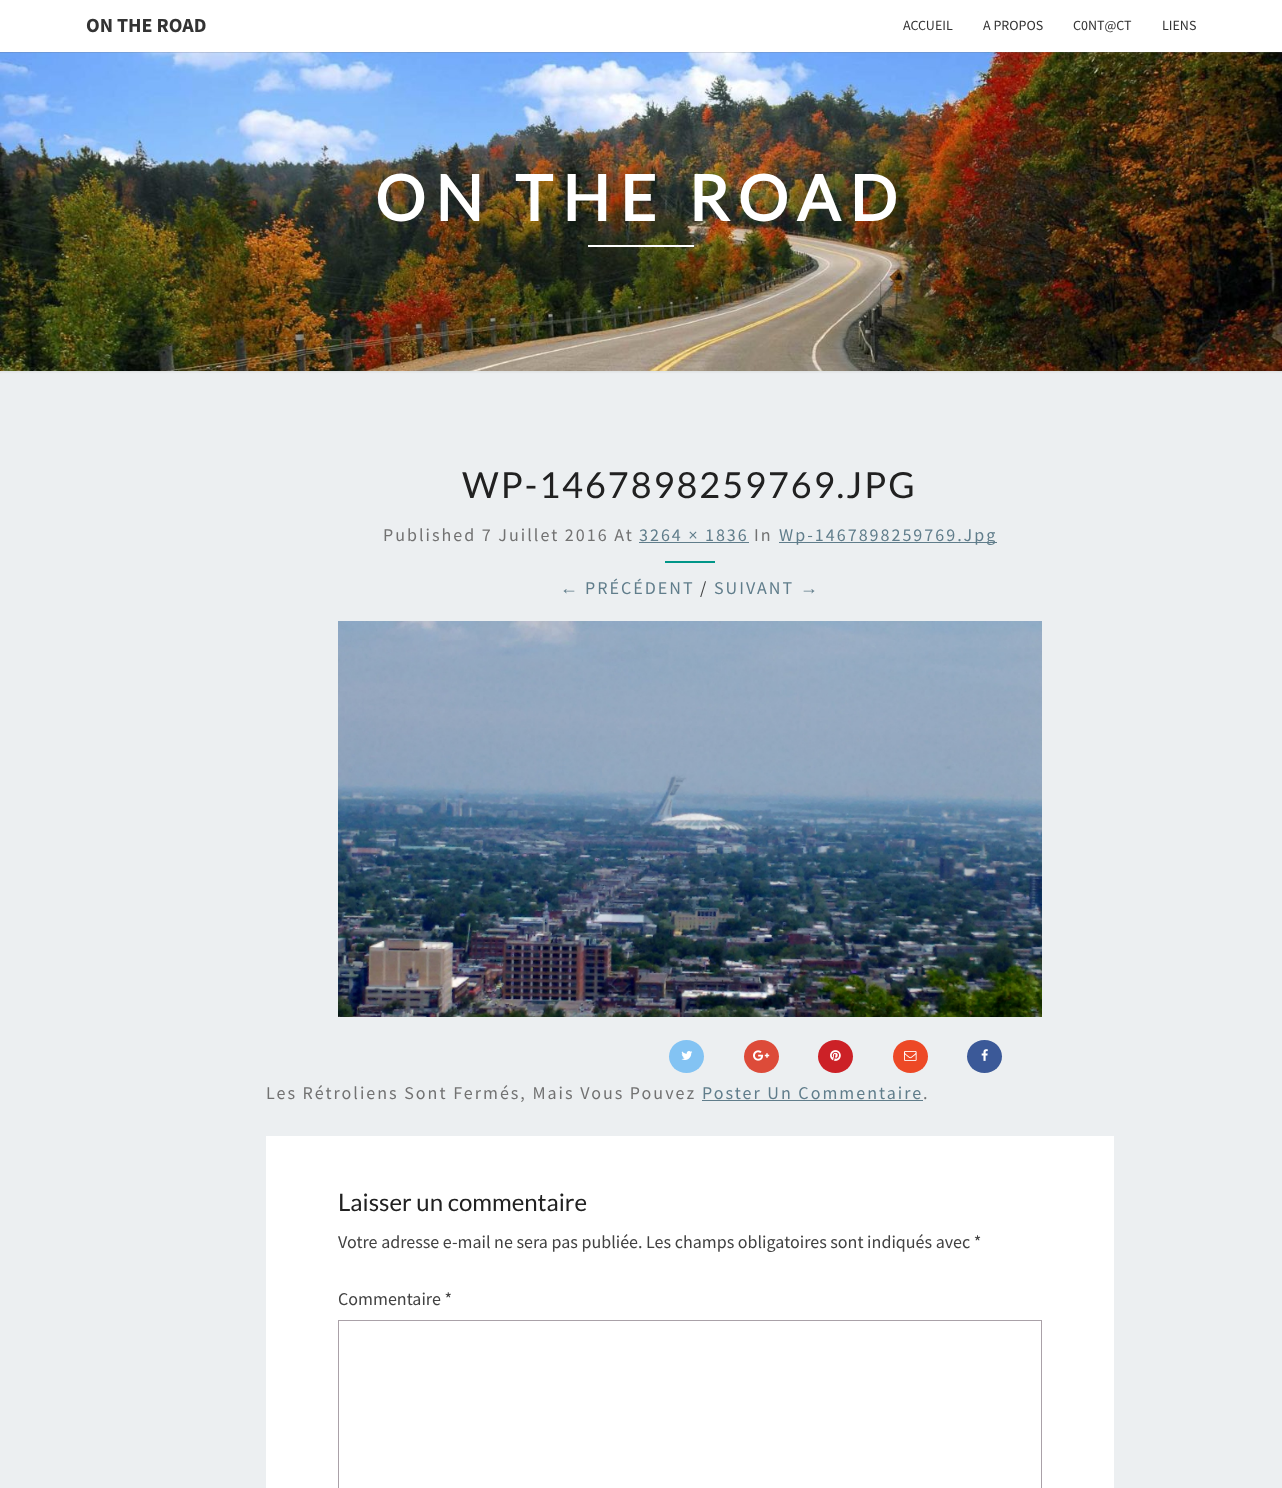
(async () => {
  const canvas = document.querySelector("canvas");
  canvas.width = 1282;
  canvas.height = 1488;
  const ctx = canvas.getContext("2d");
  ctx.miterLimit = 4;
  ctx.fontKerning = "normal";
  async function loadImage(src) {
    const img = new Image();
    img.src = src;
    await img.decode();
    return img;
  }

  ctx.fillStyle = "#eceff1";
  ctx.fillRect(0, 0, 1282, 1488);
  ctx.fillStyle = "rgba(182, 182, 182, 0.3)";
  ctx.filter = "blur(1px)";
  ctx.beginPath();
  ctx.rect(-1, 51, 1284, 321);
  ctx.fill();
  ctx.filter = "none";
  ctx.drawImage(await loadImage("img/1.png"), 0, 52, 1282, 319);
  ctx.fillStyle = "rgba(100, 100, 100, 0.2)";
  ctx.filter = "blur(0.5px)";
  ctx.beginPath();
  ctx.rect(0, 1, 1282, 52);
  ctx.fill();
  ctx.filter = "none";
  for (const [x, y, w, h, color] of [
    [0, 0, 1282, 52, "#ffffff"],
    [588, 245, 106, 2, "#ffffff"],
    [639, 542, 110, 1, "#607d8b"],
    [779, 542, 218, 1, "#607d8b"],
    [665, 561, 50, 2, "#009688"],
  ]) {
    ctx.fillStyle = color;
    ctx.fillRect(x, y, w, h);
  }
  ctx.drawImage(await loadImage("img/2.png"), 338, 621, 704, 396);
  ctx.fillStyle = "#83c3f3";
  ctx.beginPath();
  ctx.ellipse(686.5, 1056.5, 17.5, 16.5, 0, 0, Math.PI * 2);
  ctx.fill();
  ctx.drawImage(await loadImage("img/3.png"), 681, 1051, 12, 9);
  ctx.fillStyle = "#dd4b39";
  ctx.beginPath();
  ctx.ellipse(761.5, 1056.5, 17.5, 16.5, 0, 0, Math.PI * 2);
  ctx.fill();
  ctx.drawImage(await loadImage("img/4.png"), 753, 1050, 17, 11);
  ctx.fillStyle = "#cc2127";
  ctx.beginPath();
  ctx.ellipse(835.5, 1056.5, 17.5, 16.5, 0, 0, Math.PI * 2);
  ctx.fill();
  ctx.drawImage(await loadImage("img/5.png"), 830, 1050, 11, 11);
  ctx.fillStyle = "#ed4926";
  ctx.beginPath();
  ctx.ellipse(910.5, 1056.5, 17.5, 16.5, 0, 0, Math.PI * 2);
  ctx.fill();
  ctx.drawImage(await loadImage("img/6.png"), 904, 1051, 13, 10);
  ctx.fillStyle = "#3b5998";
  ctx.beginPath();
  ctx.ellipse(984.5, 1056.5, 17.5, 16.5, 0, 0, Math.PI * 2);
  ctx.fill();
  ctx.drawImage(await loadImage("img/7.png"), 981, 1049, 7, 12);
  ctx.fillStyle = "#607d8b";
  ctx.fillRect(702, 1100, 221, 1);
  ctx.fillStyle = "#ffffff";
  ctx.fillRect(266, 1136, 848, 352);
  ctx.strokeStyle = "#aaa1a8";
  ctx.strokeRect(338.5, 1320.5, 703, 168);
  ctx.font = "bold 20px Source Sans Pro";
  ctx.fillStyle = "#333333";
  ctx.fillText("ON THE ROAD", 86, 32);
  ctx.font = "14px Source Sans Pro";
  for (const [text, x, y] of [
    ["ACCUEIL", 903, 30],
    ["A PROPOS", 983, 30],
    ["C0NT@CT", 1073, 30],
    ["LIENS", 1162, 30],
  ]) {
    ctx.fillText(text, x, y);
  }
  ctx.letterSpacing = "10px";
  ctx.font = "bold 63px Lato";
  ctx.fillStyle = "#ffffff";
  ctx.fillText("ON THE ROAD", 375, 221);
  ctx.letterSpacing = "2px";
  ctx.font = "36px Lato";
  ctx.fillStyle = "#212121";
  ctx.fillText("WP-1467898259769.JPG", 462, 498);
  ctx.font = "18px Source Sans Pro";
  ctx.fillStyle = "#727272";
  ctx.fillText("Published 7 Juillet 2016 At", 383, 541);
  ctx.fillStyle = "#607d8b";
  ctx.fillText("3264 × 1836", 639, 541);
  ctx.fillStyle = "#727272";
  ctx.fillText("In", 754, 541);
  ctx.fillStyle = "#607d8b";
  ctx.fillText("Wp-1467898259769.Jpg", 779, 541);
  ctx.font = "18px Liberation Sans";
  ctx.fillText("←", 560, 594);
  ctx.font = "18px Source Sans Pro";
  ctx.fillText("PRÉCÉDENT", 585, 594);
  ctx.fillStyle = "#424242";
  ctx.fillText("/", 700, 594);
  ctx.fillStyle = "#607d8b";
  ctx.fillText("SUIVANT", 714, 594);
  ctx.font = "18px Liberation Sans";
  ctx.fillText("→", 800, 594);
  ctx.font = "18px Source Sans Pro";
  ctx.fillStyle = "#727272";
  ctx.fillText("Les Rétroliens Sont Fermés, Mais Vous Pouvez", 266, 1099);
  ctx.fillStyle = "#607d8b";
  ctx.fillText("Poster Un Commentaire", 702, 1099);
  ctx.fillStyle = "#727272";
  ctx.fillText(".", 923, 1099);
  ctx.letterSpacing = "0px";
  ctx.font = "24px Lato";
  ctx.fillStyle = "#212121";
  ctx.fillText("Laisser un commentaire", 338, 1211);
  ctx.font = "18px Source Sans Pro";
  ctx.fillStyle = "#424242";
  ctx.fillText("Votre adresse e-mail ne sera pas publiée. Les champs obligatoires sont indiqués avec *", 338, 1248);
  ctx.fillText("Commentaire *", 338, 1305);
})();
